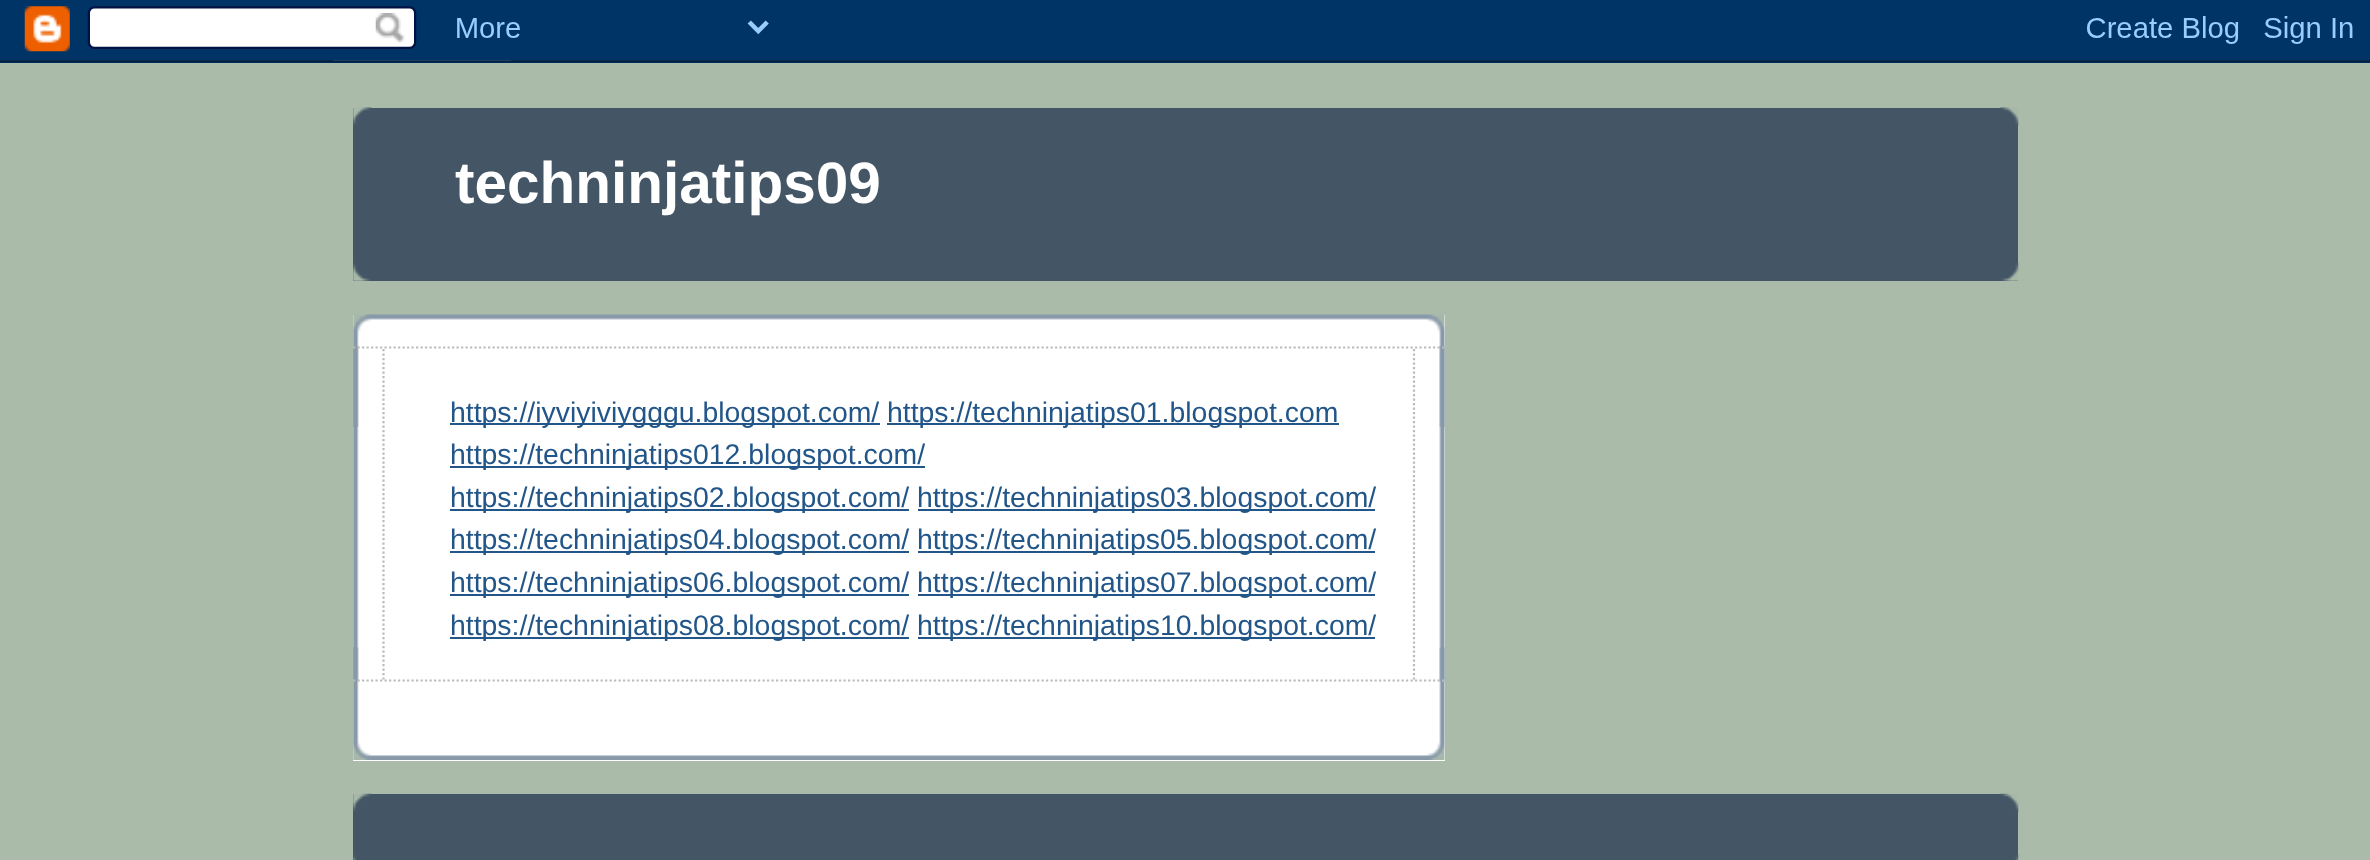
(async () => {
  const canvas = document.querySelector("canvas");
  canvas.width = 2370;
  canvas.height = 860;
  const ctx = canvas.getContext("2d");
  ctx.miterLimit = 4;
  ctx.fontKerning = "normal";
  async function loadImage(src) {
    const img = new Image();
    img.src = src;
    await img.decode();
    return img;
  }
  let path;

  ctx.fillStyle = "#aabbaa";
  ctx.fillRect(0, 0, 2370, 860);
  ctx.drawImage(await loadImage("img/1.png"), 0, 0, 2370, 63);
  ctx.fillStyle = "#445566";
  ctx.fillRect(353, 108, 1665, 173);
  ctx.drawImage(await loadImage("img/2.png"), 353, 107, 1666, 19);
  ctx.drawImage(await loadImage("img/3.png"), 353, 262, 1666, 19);
  ctx.fillStyle = "#ffffff";
  ctx.fillRect(353, 315, 1092, 446);
  ctx.drawImage(await loadImage("img/4.png"), 353, 647, 1092, 113);
  ctx.drawImage(await loadImage("img/5.png"), 353, 314, 1092, 113);
  ctx.drawImage(await loadImage("img/6.png"), 353, 346, 1092, 336);
  path = new Path2D("M353 347.5H1444.5");
  ctx.strokeStyle = "#bbbbbb";
  ctx.lineWidth = 2.2;
  ctx.setLineDash([2.25, 2.25]);
  ctx.stroke(path);
  path = new Path2D("M353 680.5H1444.5");
  ctx.stroke(path);
  path = new Path2D("M1414 349V679.5");
  ctx.stroke(path);
  path = new Path2D("M383.5 349V679.5");
  ctx.stroke(path);
  for (const [x, y, w, h, color] of [
    [450, 423, 430, 2, "#225588"],
    [887, 423, 452, 2, "#225588"],
    [450, 466, 475, 2, "#225588"],
    [450, 509, 459, 2, "#225588"],
    [918, 509, 457, 2, "#225588"],
    [450, 551, 459, 2, "#225588"],
    [918, 551, 457, 2, "#225588"],
    [450, 594, 459, 2, "#225588"],
    [918, 594, 457, 2, "#225588"],
    [450, 637, 459, 2, "#225588"],
    [918, 637, 457, 2, "#225588"],
    [353, 794, 1665, 66, "#445566"],
  ]) {
    ctx.fillStyle = color;
    ctx.fillRect(x, y, w, h);
  }
  ctx.drawImage(await loadImage("img/7.png"), 353, 793, 1666, 19);
  ctx.drawImage(await loadImage("img/8.png"), 353, 854, 1666, 6);
  ctx.font = "bold 58.5px Liberation Sans";
  ctx.fillStyle = "#ffffff";
  ctx.fillText("techninjatips09", 455, 203);
  ctx.font = "28.4px Liberation Sans";
  ctx.fillStyle = "#225588";
  for (const [text, x, y] of [
    ["https://iyviyiviygggu.blogspot.com/", 450, 422],
    ["https://techninjatips01.blogspot.com", 887, 422],
    ["https://techninjatips012.blogspot.com/", 450, 464],
    ["https://techninjatips02.blogspot.com/", 450, 507],
    ["https://techninjatips03.blogspot.com/", 917, 507],
    ["https://techninjatips04.blogspot.com/", 450, 549],
    ["https://techninjatips05.blogspot.com/", 917, 549],
    ["https://techninjatips06.blogspot.com/", 450, 592],
    ["https://techninjatips07.blogspot.com/", 917, 592],
    ["https://techninjatips08.blogspot.com/", 450, 635],
    ["https://techninjatips10.blogspot.com/", 917, 635],
  ]) {
    ctx.fillText(text, x, y);
  }
})();
